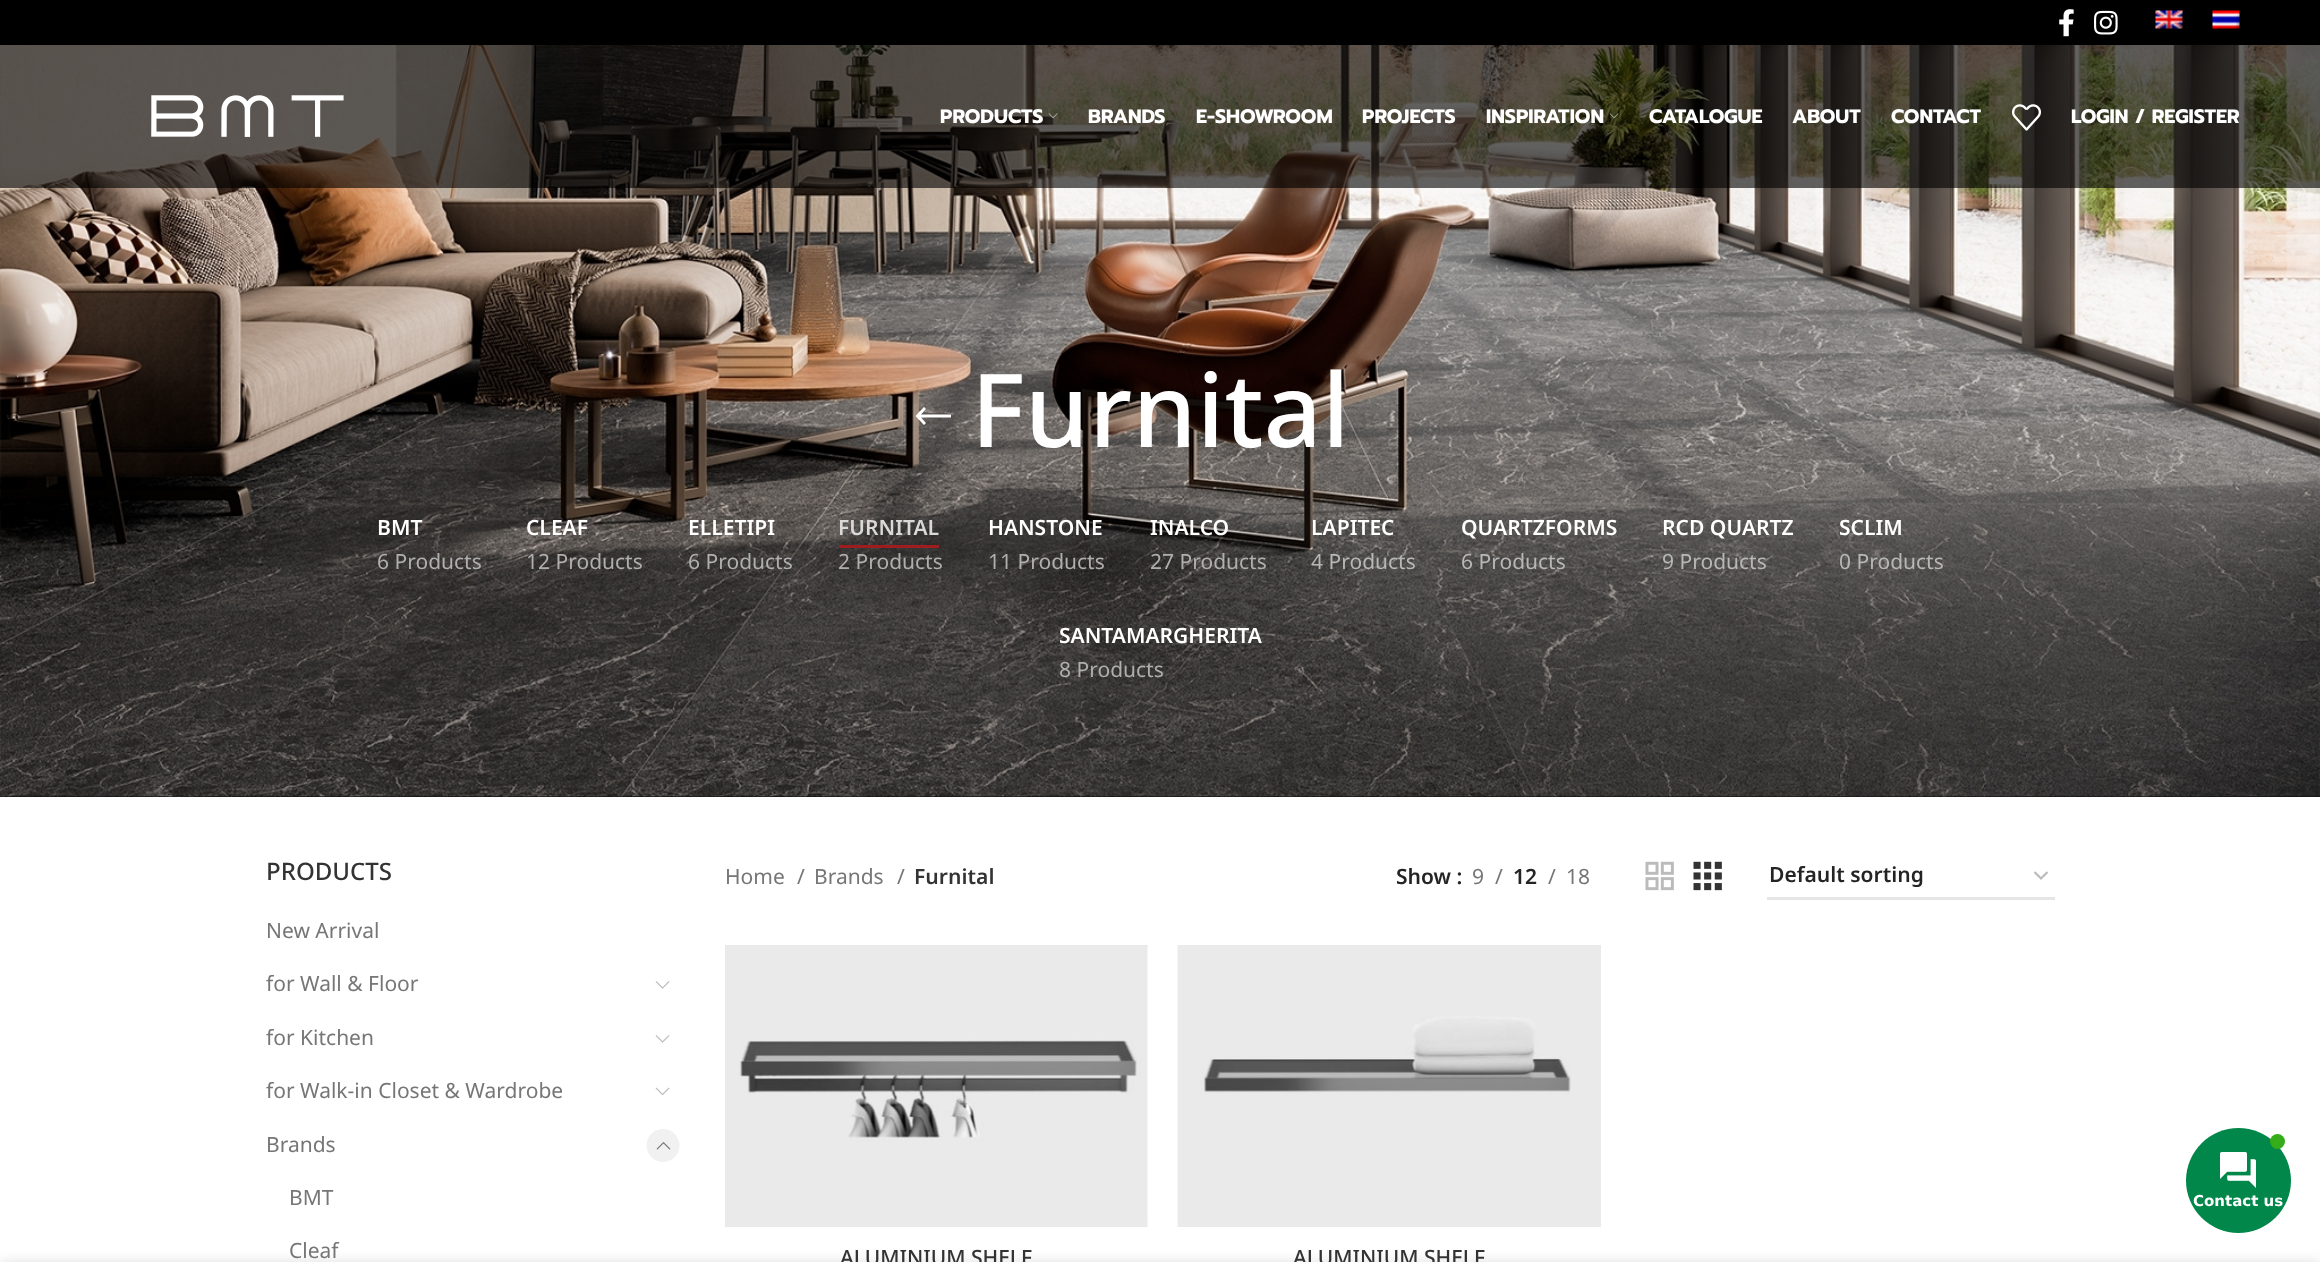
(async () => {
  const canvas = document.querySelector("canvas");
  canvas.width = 2320;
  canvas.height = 1262;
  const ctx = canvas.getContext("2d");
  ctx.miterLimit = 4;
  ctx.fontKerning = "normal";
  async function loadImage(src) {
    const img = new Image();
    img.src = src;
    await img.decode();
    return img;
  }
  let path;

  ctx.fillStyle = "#ffffff";
  ctx.fillRect(0, 0, 2320, 1262);
  ctx.fillStyle = "#000000";
  ctx.fillRect(0, 0, 2320, 45);
  ctx.drawImage(await loadImage("img/1.png"), 2059, 9, 15, 28);
  ctx.drawImage(await loadImage("img/2.png"), 2094, 10, 24, 25);
  ctx.drawImage(await loadImage("img/3.png"), 2155, 10, 28, 19);
  ctx.drawImage(await loadImage("img/4.png"), 2212, 10, 28, 19);
  ctx.fillStyle = "#0a0a0a";
  ctx.fillRect(0, 796, 2320, 1);
  ctx.drawImage(await loadImage("img/9.png"), 0, 45, 2320, 752);
  ctx.fillStyle = "rgba(0, 0, 0, 0.61)";
  ctx.fillRect(0, 45, 2320, 143);
  ctx.drawImage(await loadImage("img/5.png"), 151, 95, 193, 42);
  ctx.drawImage(await loadImage("img/6.png"), 1048, 113, 10, 6);
  ctx.drawImage(await loadImage("img/7.png"), 1609, 113, 10, 6);
  ctx.drawImage(await loadImage("img/8.png"), 2012, 104, 29, 27);
  ctx.fillStyle = "#ffffff";
  path = new Path2D("M926 423L921 417.5H951V414.5H921L926 409L924 407L915.5 416L924 425Z");
  ctx.fill(path);
  ctx.fillStyle = "#9f1c1f";
  ctx.fillRect(839, 545, 100, 3);
  ctx.drawImage(await loadImage("img/10.png"), 655, 981, 15, 8);
  ctx.drawImage(await loadImage("img/10.png"), 655, 1035, 15, 8);
  ctx.drawImage(await loadImage("img/11.png"), 655, 1087, 15, 9);
  ctx.fillStyle = "#f1f1f1";
  path = new Path2D("M663 1162C654 1162 646.5 1154.5 646.5 1145.5C646.5 1136.5 654 1129 663 1129C672 1129 679.5 1136.5 679.5 1145.5C679.5 1154.5 672 1162 663 1162Z");
  ctx.fill(path);
  ctx.drawImage(await loadImage("img/12.png"), 656, 1142, 15, 8);
  ctx.drawImage(await loadImage("img/13.png"), 1645, 861, 29, 30);
  ctx.drawImage(await loadImage("img/14.png"), 1693, 861, 29, 30);
  path = new Path2D("M2034.5 872L2041 878.5L2047.5 872");
  ctx.strokeStyle = "#bbbbbb";
  ctx.lineWidth = 2.2;
  ctx.stroke(path);
  ctx.fillStyle = "#e6e6e6";
  ctx.fillRect(1767, 897, 288, 3);
  ctx.drawImage(await loadImage("img/15.png"), 725, 945, 423, 282);
  ctx.drawImage(await loadImage("img/16.png"), 1177, 945, 424, 282);
  ctx.fillStyle = "#008749";
  ctx.beginPath();
  ctx.arc(2238.5, 1180.5, 52.5, 0, Math.PI * 2);
  ctx.fill();
  ctx.fillStyle = "#35ac19";
  ctx.beginPath();
  ctx.arc(2277.5, 1141.5, 7.5, 0, Math.PI * 2);
  ctx.fill();
  ctx.drawImage(await loadImage("img/17.png"), 2220, 1152, 36, 36);
  ctx.fillStyle = "rgba(0, 0, 0, 0.14)";
  ctx.filter = "blur(7px)";
  ctx.beginPath();
  ctx.rect(0, 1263, 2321, 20);
  ctx.fill();
  ctx.filter = "none";
  ctx.font = "bold 19.5px Prompt";
  ctx.fillStyle = "#ffffff";
  for (const [text, x, y] of [
    ["PRODUCTS", 940, 123],
    ["BRANDS", 1088, 123],
    ["E-SHOWROOM", 1196, 123],
    ["PROJECTS", 1362, 123],
    ["INSPIRATION", 1486, 123],
    ["CATALOGUE", 1649, 123],
    ["ABOUT", 1792, 123],
    ["CONTACT", 1891, 123],
    ["LOGIN / REGISTER", 2071, 123],
  ]) {
    ctx.fillText(text, x, y);
  }
  ctx.font = "500 102px Noto Sans Thai";
  ctx.fillText("Furnital", 971, 447);
  ctx.font = "600 21px Noto Sans Thai";
  ctx.fillText("BMT", 377, 535);
  ctx.font = "21px Noto Sans Thai";
  ctx.fillStyle = "#b0afaf";
  ctx.fillText("6 Products", 377, 569);
  ctx.font = "600 21px Noto Sans Thai";
  ctx.fillStyle = "#ffffff";
  ctx.fillText("CLEAF", 526, 535);
  ctx.font = "21px Noto Sans Thai";
  ctx.fillStyle = "#b0afaf";
  ctx.fillText("12 Products", 526, 569);
  ctx.font = "600 21px Noto Sans Thai";
  ctx.fillStyle = "#ffffff";
  ctx.fillText("ELLETIPI", 688, 535);
  ctx.font = "21px Noto Sans Thai";
  ctx.fillStyle = "#b0afaf";
  ctx.fillText("6 Products", 688, 569);
  ctx.font = "600 21px Noto Sans Thai";
  ctx.fillStyle = "#d9d9d8";
  ctx.fillText("FURNITAL", 838, 535);
  ctx.font = "21px Noto Sans Thai";
  ctx.fillStyle = "#b0afaf";
  ctx.fillText("2 Products", 838, 569);
  ctx.font = "600 21px Noto Sans Thai";
  ctx.fillStyle = "#ffffff";
  ctx.fillText("HANSTONE", 988, 535);
  ctx.font = "21px Noto Sans Thai";
  ctx.fillStyle = "#b0afaf";
  ctx.fillText("11 Products", 988, 569);
  ctx.font = "600 21px Noto Sans Thai";
  ctx.fillStyle = "#ffffff";
  ctx.fillText("INALCO", 1150, 535);
  ctx.font = "21px Noto Sans Thai";
  ctx.fillStyle = "#b0afaf";
  ctx.fillText("27 Products", 1150, 569);
  ctx.font = "600 21px Noto Sans Thai";
  ctx.fillStyle = "#ffffff";
  ctx.fillText("LAPITEC", 1311, 535);
  ctx.font = "21px Noto Sans Thai";
  ctx.fillStyle = "#b8b7b7";
  ctx.fillText("4 Products", 1311, 569);
  ctx.font = "600 21px Noto Sans Thai";
  ctx.fillStyle = "#ffffff";
  ctx.fillText("QUARTZFORMS", 1461, 535);
  ctx.font = "21px Noto Sans Thai";
  ctx.fillStyle = "#b8b7b7";
  ctx.fillText("6 Products", 1461, 569);
  ctx.font = "600 21px Noto Sans Thai";
  ctx.fillStyle = "#ffffff";
  ctx.fillText("RCD QUARTZ", 1662, 535);
  ctx.font = "21px Noto Sans Thai";
  ctx.fillStyle = "#b8b7b7";
  ctx.fillText("9 Products", 1662, 569);
  ctx.font = "600 21px Noto Sans Thai";
  ctx.fillStyle = "#ffffff";
  ctx.fillText("SCLIM", 1839, 535);
  ctx.font = "21px Noto Sans Thai";
  ctx.fillStyle = "#b8b7b7";
  ctx.fillText("0 Products", 1839, 569);
  ctx.font = "600 21px Noto Sans Thai";
  ctx.fillStyle = "#ffffff";
  ctx.fillText("SANTAMARGHERITA", 1059, 643);
  ctx.font = "21px Noto Sans Thai";
  ctx.fillStyle = "#b0afaf";
  ctx.fillText("8 Products", 1059, 677);
  ctx.font = "500 24px Noto Sans Thai";
  ctx.fillStyle = "#333333";
  ctx.fillText("PRODUCTS", 266, 880);
  ctx.font = "21px Noto Sans Thai";
  ctx.fillStyle = "#767676";
  for (const [text, x, y] of [
    ["New Arrival", 266, 938],
    ["for Wall & Floor", 266, 991],
    ["for Kitchen", 266, 1045],
    ["for Walk-in Closet & Wardrobe", 266, 1098],
    ["Brands", 266, 1152],
    ["BMT", 289, 1205],
    ["Cleaf", 289, 1258],
    ["Home", 725, 884],
    ["/", 797, 884],
    ["Brands", 814, 884],
    ["/", 897, 884],
  ]) {
    ctx.fillText(text, x, y);
  }
  ctx.font = "600 21px Noto Sans Thai";
  ctx.fillStyle = "#333333";
  ctx.fillText("Furnital", 914, 884);
  ctx.fillStyle = "#242424";
  ctx.fillText("Show :", 1396, 884);
  ctx.font = "21px Noto Sans Thai";
  ctx.fillStyle = "#767676";
  ctx.fillText("9", 1472, 884);
  ctx.fillText("/", 1495, 884);
  ctx.font = "600 21px Noto Sans Thai";
  ctx.fillStyle = "#242424";
  ctx.fillText("12", 1513, 884);
  ctx.font = "21px Noto Sans Thai";
  ctx.fillStyle = "#767676";
  ctx.fillText("/", 1548, 884);
  ctx.fillText("18", 1566, 884);
  ctx.font = "600 21px Noto Sans Thai";
  ctx.fillStyle = "#242424";
  ctx.fillText("Default sorting", 1769, 882);
  ctx.font = "500 21px Noto Sans Thai Looped";
  ctx.fillStyle = "#333333";
  ctx.fillText("ALUMINIUM SHELF", 840, 1265);
  ctx.fillText("ALUMINIUM SHELF", 1293, 1265);
  ctx.font = "bold 15px DejaVu Sans";
  ctx.fillStyle = "#ffffff";
  ctx.fillText("Contact us", 2193, 1206);
})();
